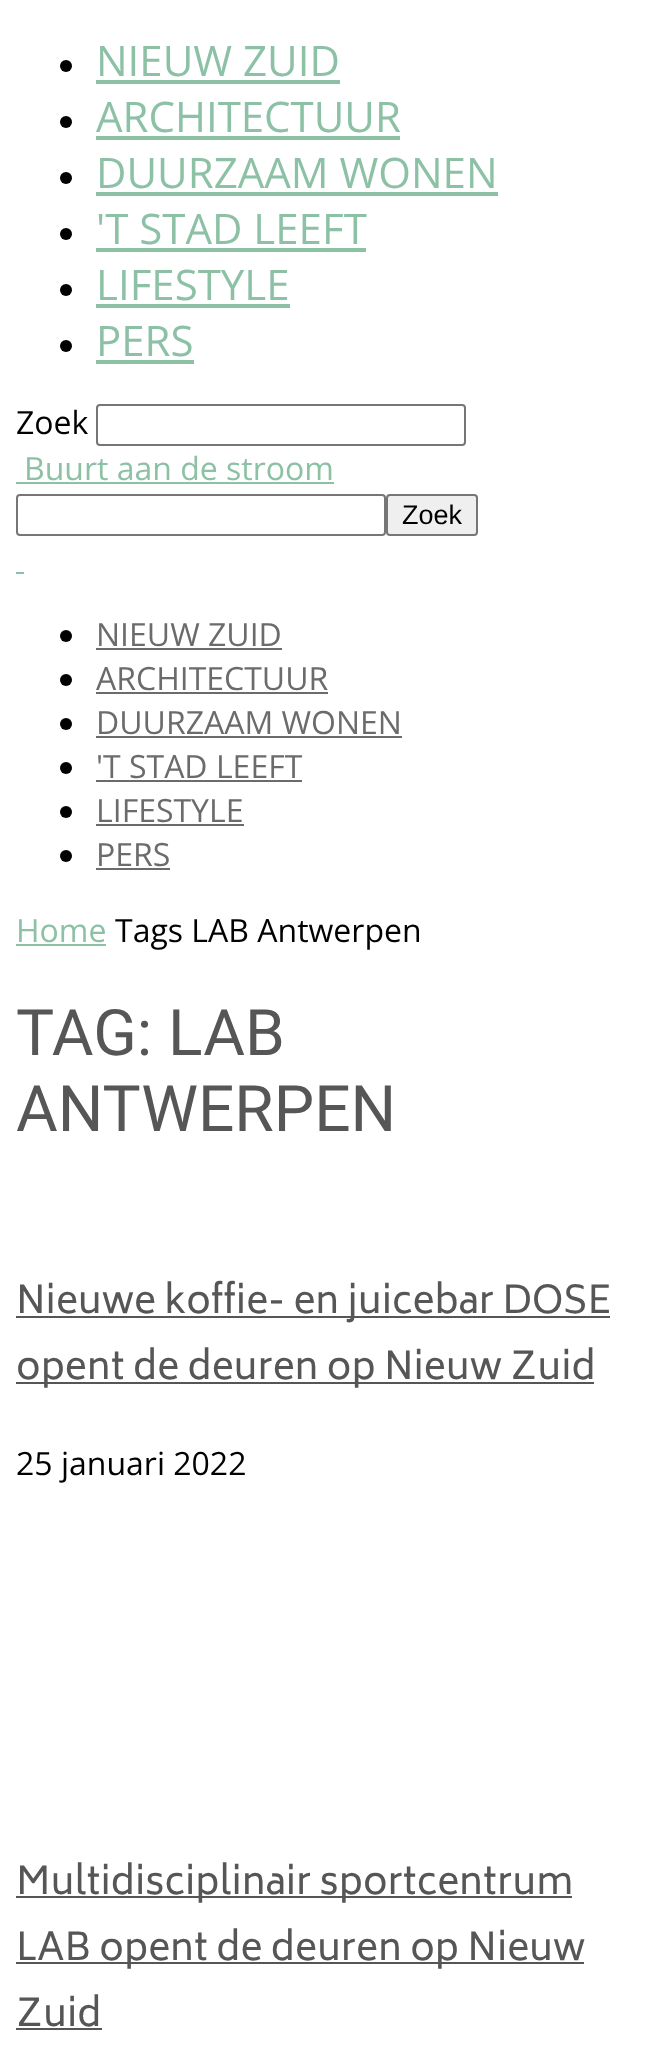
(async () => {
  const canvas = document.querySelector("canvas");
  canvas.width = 658;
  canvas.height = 2071;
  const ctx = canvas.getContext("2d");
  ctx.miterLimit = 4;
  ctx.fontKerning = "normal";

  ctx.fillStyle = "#ffffff";
  ctx.fillRect(0, 0, 658, 2071);
  ctx.fillStyle = "#000000";
  ctx.beginPath();
  ctx.arc(66, 66, 6, 0, Math.PI * 2);
  ctx.fill();
  ctx.fillStyle = "#8cc1a6";
  ctx.fillRect(96, 80, 244, 4);
  ctx.fillStyle = "#000000";
  ctx.beginPath();
  ctx.arc(66, 122, 6, 0, Math.PI * 2);
  ctx.fill();
  ctx.fillStyle = "#8cc1a6";
  ctx.fillRect(96, 136, 304, 4);
  ctx.fillStyle = "#000000";
  ctx.beginPath();
  ctx.arc(66, 178, 6, 0, Math.PI * 2);
  ctx.fill();
  ctx.fillStyle = "#8cc1a6";
  ctx.fillRect(96, 192, 402, 4);
  ctx.fillStyle = "#000000";
  ctx.beginPath();
  ctx.arc(66, 234, 6, 0, Math.PI * 2);
  ctx.fill();
  ctx.fillStyle = "#8cc1a6";
  ctx.fillRect(96, 248, 270, 4);
  ctx.fillStyle = "#000000";
  ctx.beginPath();
  ctx.arc(66, 290, 6, 0, Math.PI * 2);
  ctx.fill();
  ctx.fillStyle = "#8cc1a6";
  ctx.fillRect(96, 304, 194, 4);
  ctx.fillStyle = "#000000";
  ctx.beginPath();
  ctx.arc(66, 346, 6, 0, Math.PI * 2);
  ctx.fill();
  ctx.fillStyle = "#8cc1a6";
  ctx.fillRect(96, 360, 98, 4);
  ctx.beginPath();
  ctx.roundRect(97, 405, 368, 40, 3);
  ctx.strokeStyle = "#767676";
  ctx.lineWidth = 2;
  ctx.stroke();
  ctx.fillRect(16, 482, 318, 2);
  ctx.beginPath();
  ctx.roundRect(17, 495, 368, 40, 3);
  ctx.stroke();
  ctx.fillStyle = "#efefef";
  ctx.beginPath();
  ctx.roundRect(387, 495, 90, 40, 3);
  ctx.fill();
  ctx.stroke();
  ctx.fillStyle = "#8cc1a6";
  ctx.fillRect(16, 572, 8, 2);
  ctx.fillStyle = "#000000";
  ctx.beginPath();
  ctx.arc(66, 636, 6, 0, Math.PI * 2);
  ctx.fill();
  ctx.fillStyle = "#6b6b6b";
  ctx.fillRect(96, 648, 186, 2);
  ctx.fillStyle = "#000000";
  ctx.beginPath();
  ctx.arc(66, 680, 6, 0, Math.PI * 2);
  ctx.fill();
  ctx.fillStyle = "#6b6b6b";
  ctx.fillRect(96, 692, 232, 2);
  ctx.fillStyle = "#000000";
  ctx.beginPath();
  ctx.arc(66, 724, 6, 0, Math.PI * 2);
  ctx.fill();
  ctx.fillStyle = "#6b6b6b";
  ctx.fillRect(96, 736, 306, 2);
  ctx.fillStyle = "#000000";
  ctx.beginPath();
  ctx.arc(66, 768, 6, 0, Math.PI * 2);
  ctx.fill();
  ctx.fillStyle = "#6b6b6b";
  ctx.fillRect(96, 780, 206, 2);
  ctx.fillStyle = "#000000";
  ctx.beginPath();
  ctx.arc(66, 812, 6, 0, Math.PI * 2);
  ctx.fill();
  ctx.fillStyle = "#6b6b6b";
  ctx.fillRect(96, 824, 148, 2);
  ctx.fillStyle = "#000000";
  ctx.beginPath();
  ctx.arc(66, 856, 6, 0, Math.PI * 2);
  ctx.fill();
  for (const [x, y, w, h, color] of [
    [96, 868, 74, 2, "#6b6b6b"],
    [16, 944, 90, 2, "#8cc1a6"],
    [16, 1316, 594, 2, "#565656"],
    [16, 1382, 578, 2, "#565656"],
    [16, 1896, 556, 2, "#565656"],
    [16, 1962, 568, 2, "#565656"],
    [16, 2028, 86, 2, "#565656"],
  ]) {
    ctx.fillStyle = color;
    ctx.fillRect(x, y, w, h);
  }
  ctx.font = "42px Open Sans";
  ctx.fillStyle = "#8cc1a6";
  for (const [text, x, y] of [
    ["NIEUW ZUID", 96, 76],
    ["ARCHITECTUUR", 96, 132],
    ["DUURZAAM WONEN", 96, 188],
    ["'T STAD LEEFT", 96, 244],
    ["LIFESTYLE", 96, 300],
    ["PERS", 96, 356],
  ]) {
    ctx.fillText(text, x, y);
  }
  ctx.font = "32px Open Sans";
  ctx.fillStyle = "#000000";
  ctx.fillText("Zoek", 16, 434);
  ctx.fillStyle = "#8cc1a6";
  ctx.fillText("Buurt aan de stroom", 24, 480);
  ctx.font = "27px Liberation Sans";
  ctx.fillStyle = "#000000";
  ctx.fillText("Zoek", 402, 524);
  ctx.font = "32px Open Sans";
  ctx.fillStyle = "#6b6b6b";
  for (const [text, x, y] of [
    ["NIEUW ZUID", 96, 646],
    ["ARCHITECTUUR", 96, 690],
    ["DUURZAAM WONEN", 96, 734],
    ["'T STAD LEEFT", 96, 778],
    ["LIFESTYLE", 96, 822],
    ["PERS", 96, 866],
  ]) {
    ctx.fillText(text, x, y);
  }
  ctx.fillStyle = "#8cc1a6";
  ctx.fillText("Home", 16, 942);
  ctx.fillStyle = "#000000";
  ctx.fillText("Tags LAB Antwerpen", 115, 942);
  ctx.font = "64px Roboto";
  ctx.fillStyle = "#565656";
  ctx.fillText("TAG: LAB", 16, 1055);
  ctx.fillText("ANTWERPEN", 16, 1131);
  ctx.font = "37.5px Biryani";
  ctx.fillText("Nieuwe koffie- en juicebar DOSE", 16, 1313);
  ctx.fillText("opent de deuren op Nieuw Zuid", 16, 1379);
  ctx.font = "32px Open Sans";
  ctx.fillStyle = "#000000";
  ctx.fillText("25 januari 2022", 16, 1475);
  ctx.font = "37.5px Biryani";
  ctx.fillStyle = "#565656";
  for (const [text, x, y] of [
    ["Multidisciplinair sportcentrum", 16, 1894],
    ["LAB opent de deuren op Nieuw", 16, 1960],
    ["Zuid", 16, 2026],
  ]) {
    ctx.fillText(text, x, y);
  }
})();
